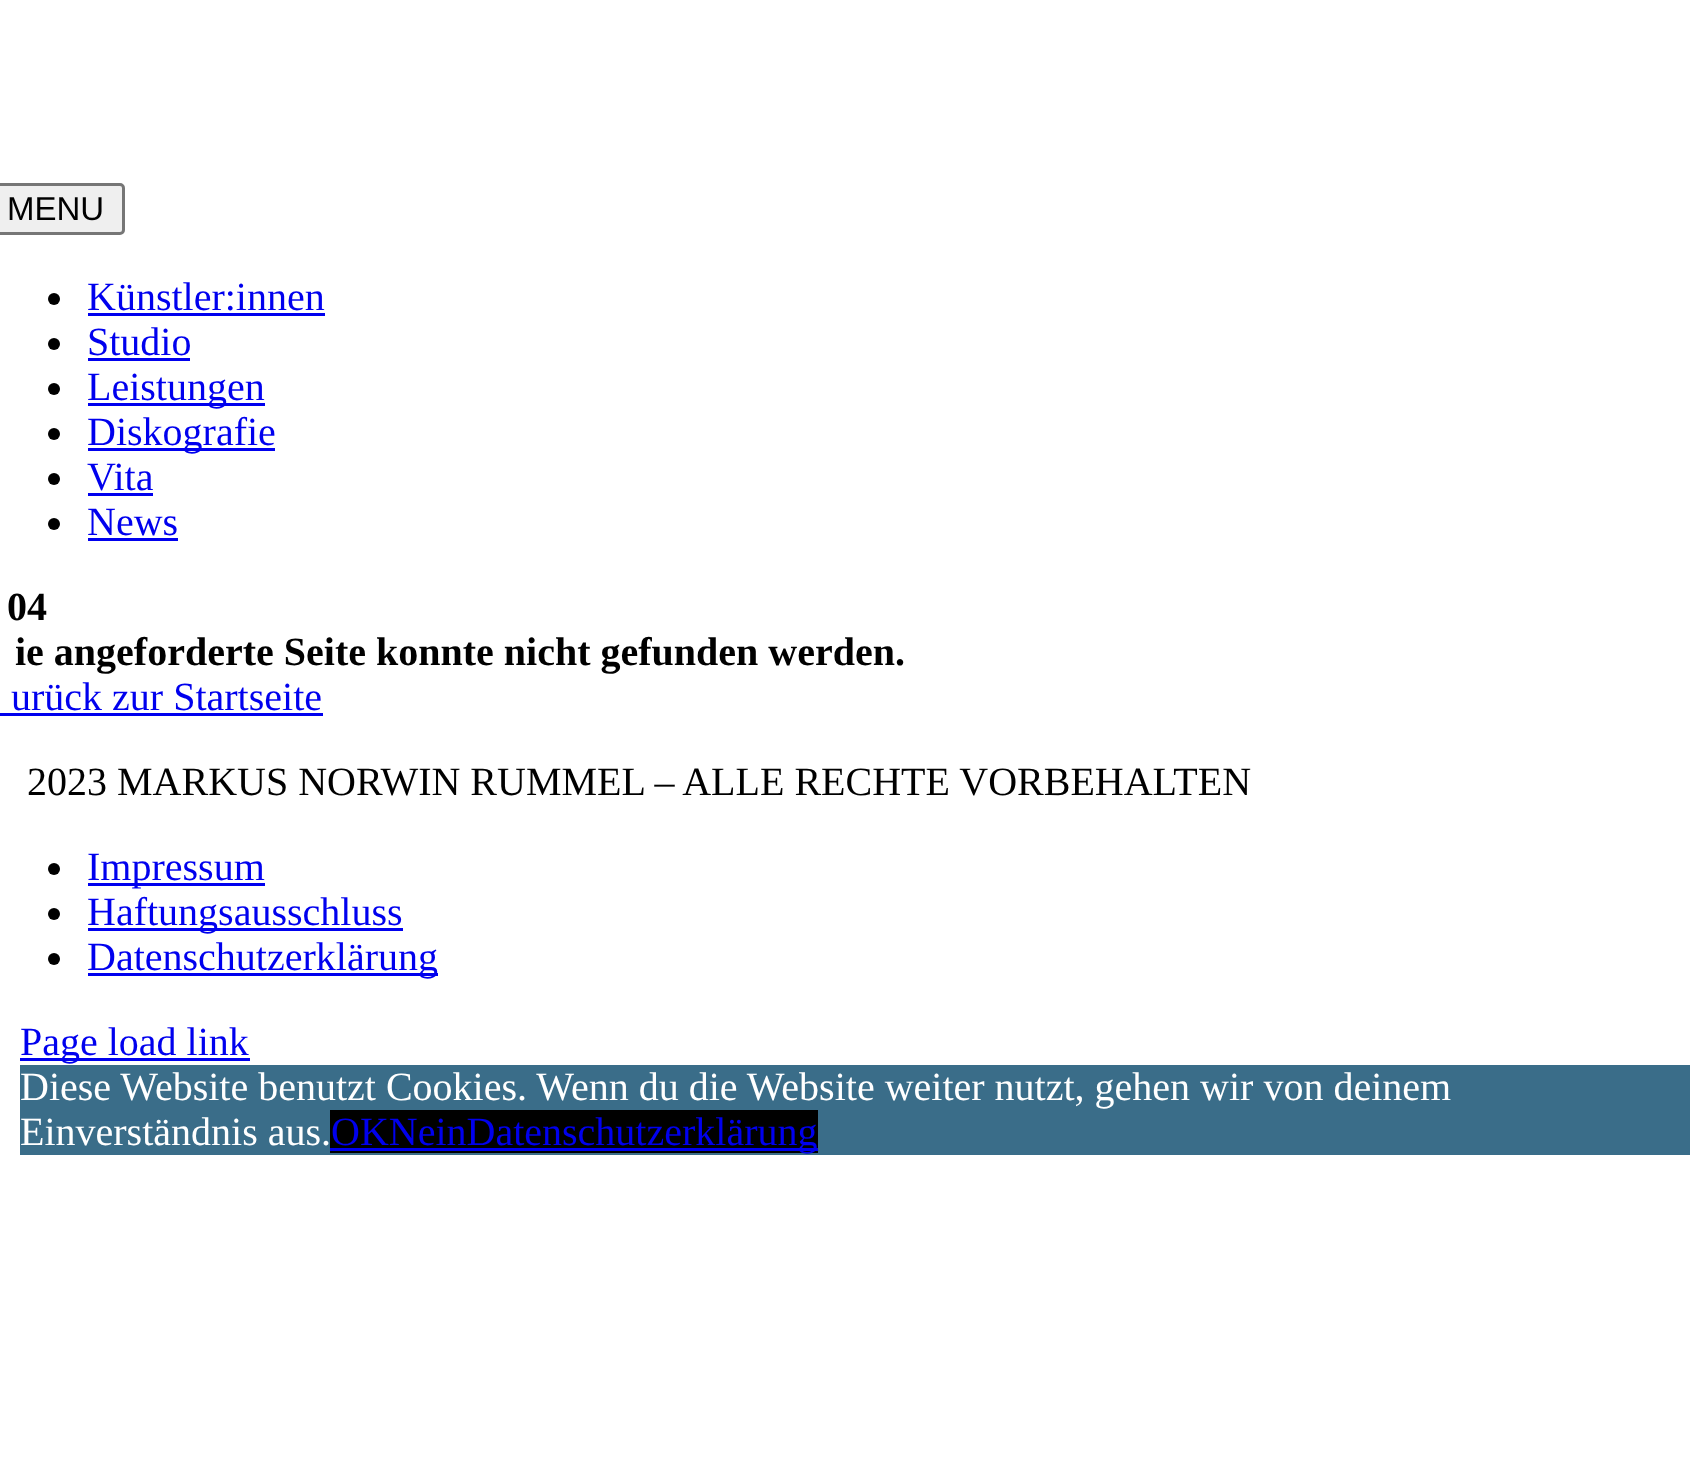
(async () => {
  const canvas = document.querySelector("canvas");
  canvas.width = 1708;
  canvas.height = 1472;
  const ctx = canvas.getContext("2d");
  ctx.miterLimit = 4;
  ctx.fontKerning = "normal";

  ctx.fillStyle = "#ffffff";
  ctx.fillRect(0, 0, 1708, 1472);
  ctx.fillStyle = "#efefef";
  ctx.beginPath();
  ctx.roundRect(-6.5, 184.5, 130, 49, 3.5);
  ctx.fill();
  ctx.strokeStyle = "#767676";
  ctx.lineWidth = 3;
  ctx.stroke();
  ctx.fillStyle = "#000000";
  ctx.beginPath();
  ctx.arc(54, 299, 6, 0, Math.PI * 2);
  ctx.fill();
  ctx.fillStyle = "#0000ee";
  ctx.fillRect(88, 313, 237, 3);
  ctx.fillStyle = "#000000";
  ctx.beginPath();
  ctx.arc(54, 344, 6, 0, Math.PI * 2);
  ctx.fill();
  ctx.fillStyle = "#0000ee";
  ctx.fillRect(88, 358, 102, 3);
  ctx.fillStyle = "#000000";
  ctx.beginPath();
  ctx.arc(54, 389, 6, 0, Math.PI * 2);
  ctx.fill();
  ctx.fillStyle = "#0000ee";
  ctx.fillRect(88, 403, 177, 3);
  ctx.fillStyle = "#000000";
  ctx.beginPath();
  ctx.arc(54, 434, 6, 0, Math.PI * 2);
  ctx.fill();
  ctx.fillStyle = "#0000ee";
  ctx.fillRect(88, 448, 187, 3);
  ctx.fillStyle = "#000000";
  ctx.beginPath();
  ctx.arc(54, 479, 6, 0, Math.PI * 2);
  ctx.fill();
  ctx.fillStyle = "#0000ee";
  ctx.fillRect(88, 493, 65, 3);
  ctx.fillStyle = "#000000";
  ctx.beginPath();
  ctx.arc(54, 524, 6, 0, Math.PI * 2);
  ctx.fill();
  ctx.fillStyle = "#0000ee";
  ctx.fillRect(88, 538, 90, 3);
  ctx.fillRect(0, 713, 323, 3);
  ctx.fillStyle = "#000000";
  ctx.beginPath();
  ctx.arc(54, 869, 6, 0, Math.PI * 2);
  ctx.fill();
  ctx.fillStyle = "#0000ee";
  ctx.fillRect(88, 883, 177, 3);
  ctx.fillStyle = "#000000";
  ctx.beginPath();
  ctx.arc(54, 914, 6, 0, Math.PI * 2);
  ctx.fill();
  ctx.fillStyle = "#0000ee";
  ctx.fillRect(88, 928, 315, 3);
  ctx.fillStyle = "#000000";
  ctx.beginPath();
  ctx.arc(54, 959, 6, 0, Math.PI * 2);
  ctx.fill();
  for (const [x, y, w, h, color] of [
    [88, 973, 350, 3, "#0000ee"],
    [20, 1058, 230, 3, "#0000ee"],
    [20, 1065, 1670, 90, "#3a6d89"],
    [330, 1110, 488, 43, "#000000"],
    [330, 1148, 488, 3, "#0000ee"],
  ]) {
    ctx.fillStyle = color;
    ctx.fillRect(x, y, w, h);
  }
  ctx.font = "33px Liberation Sans";
  ctx.fillStyle = "#000000";
  ctx.fillText("MENU", 7, 220);
  ctx.font = "40px Liberation Serif";
  ctx.fillStyle = "#0000ee";
  for (const [text, x, y] of [
    ["Künstler:innen", 87, 310],
    ["Studio", 87, 355],
    ["Leistungen", 87, 400],
    ["Diskografie", 87, 445],
    ["Vita", 87, 490],
    ["News", 87, 535],
  ]) {
    ctx.fillText(text, x, y);
  }
  ctx.font = "bold 40px Liberation Serif";
  ctx.fillStyle = "#000000";
  ctx.fillText("04", 7, 620);
  ctx.fillText("ie angeforderte Seite konnte nicht gefunden werden.", 15, 665);
  ctx.font = "40px Liberation Serif";
  ctx.fillStyle = "#0000ee";
  ctx.fillText("urück zur Startseite", 11, 710);
  ctx.fillStyle = "#000000";
  ctx.fillText("2023 MARKUS NORWIN RUMMEL – ALLE RECHTE VORBEHALTEN", 27, 795);
  ctx.fillStyle = "#0000ee";
  for (const [text, x, y] of [
    ["Impressum", 87, 880],
    ["Haftungsausschluss", 87, 925],
    ["Datenschutzerklärung", 87, 970],
    ["Page load link", 20, 1055],
  ]) {
    ctx.fillText(text, x, y);
  }
  ctx.fillStyle = "#ffffff";
  ctx.fillText("Diese Website benutzt Cookies. Wenn du die Website weiter nutzt, gehen wir von deinem", 20, 1100);
  ctx.fillText("Einverständnis aus.", 20, 1145);
  ctx.fillStyle = "#0000ee";
  ctx.fillText("OKNeinDatenschutzerklärung", 331, 1145);
})();
